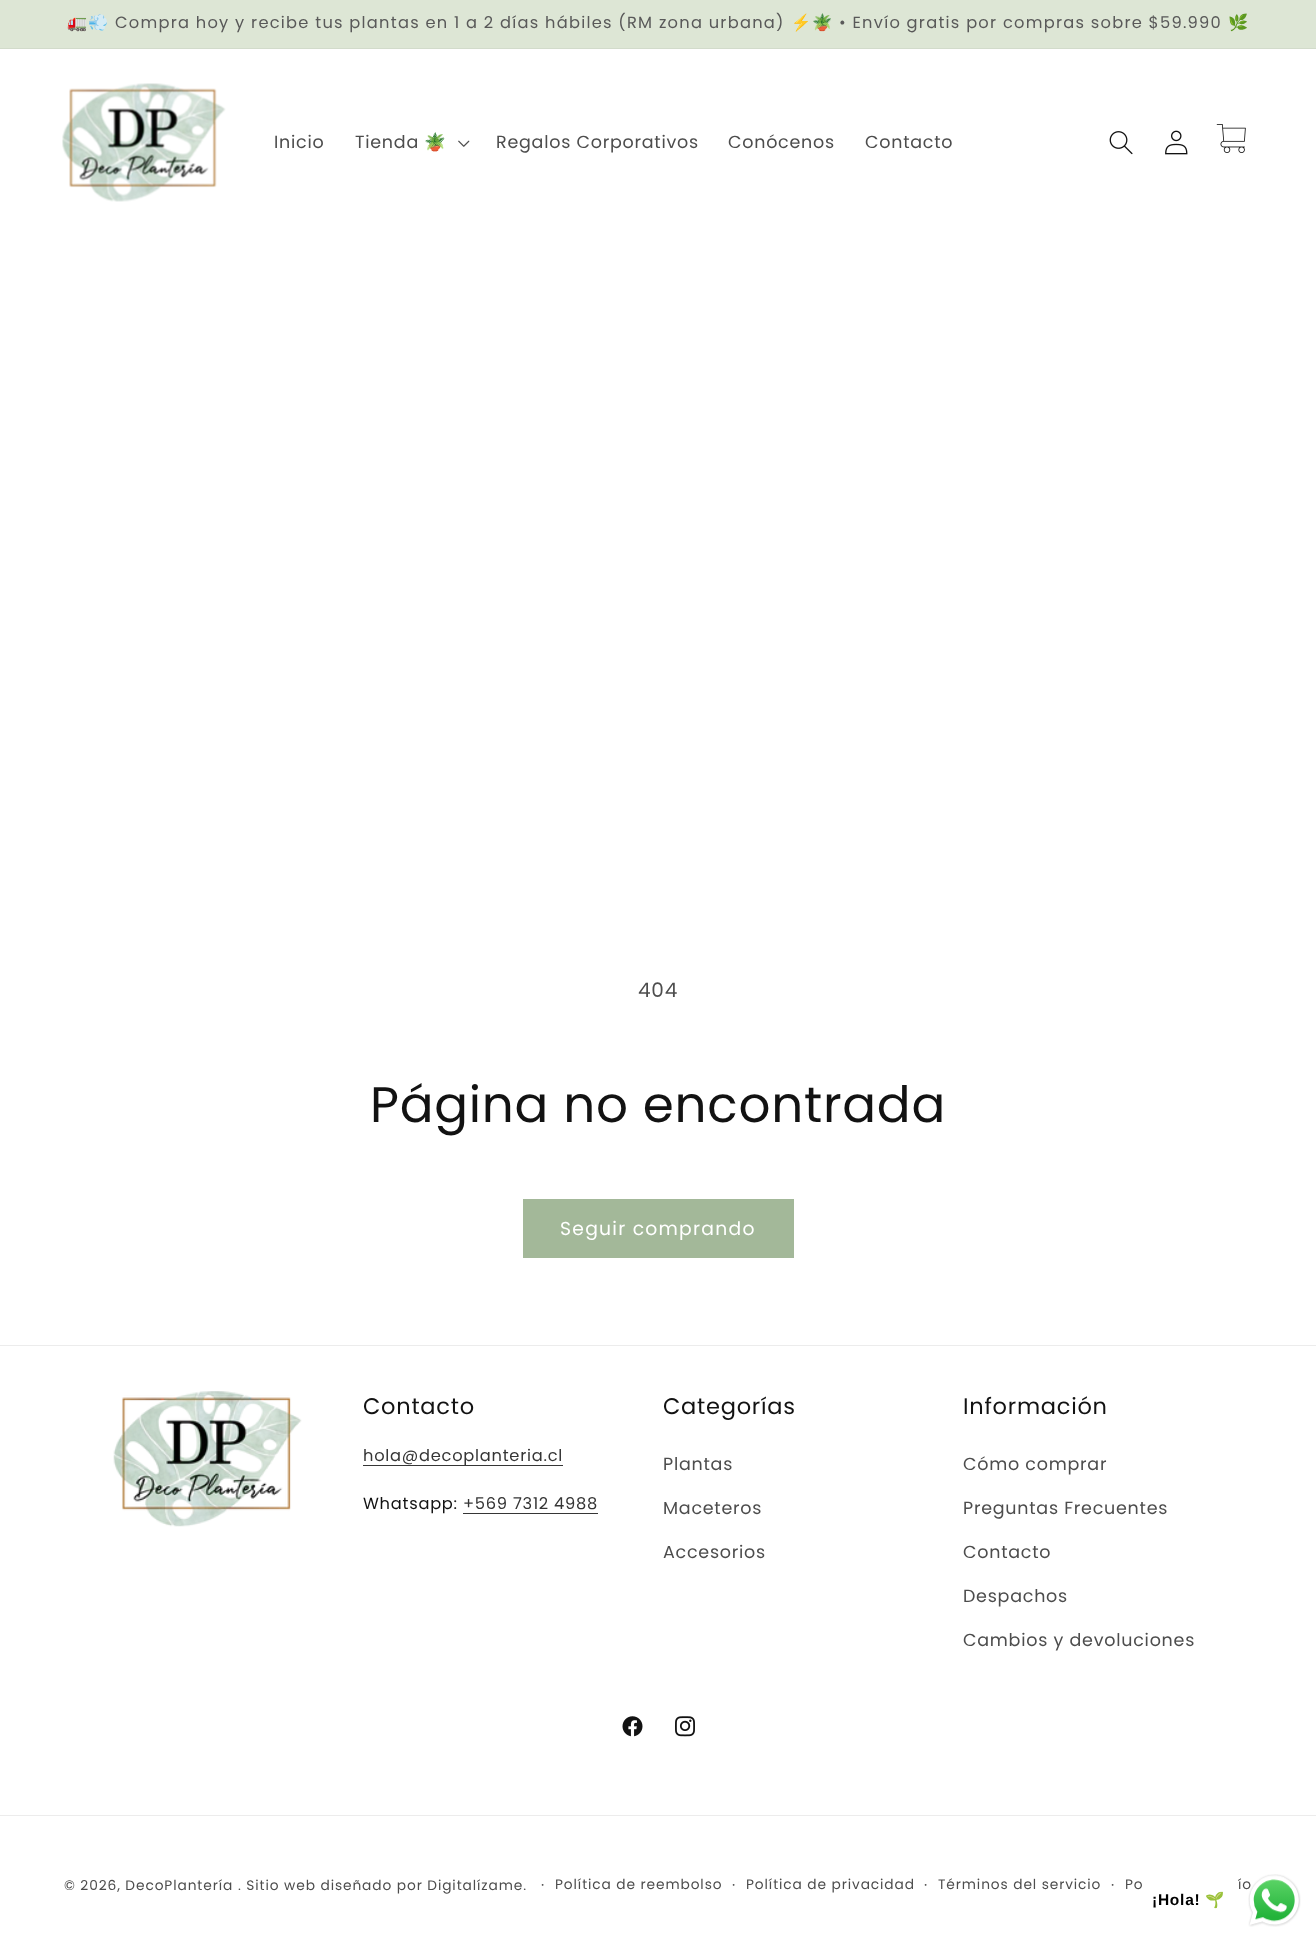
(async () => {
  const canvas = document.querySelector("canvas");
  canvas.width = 1316;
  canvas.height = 1942;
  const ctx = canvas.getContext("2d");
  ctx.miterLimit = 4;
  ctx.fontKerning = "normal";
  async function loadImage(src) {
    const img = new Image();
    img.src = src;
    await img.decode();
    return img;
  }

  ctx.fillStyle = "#ffffff";
  ctx.fillRect(0, 0, 1316, 1942);
  ctx.fillStyle = "#dde6d5";
  ctx.fillRect(0, 0, 1316, 48);
  ctx.fillStyle = "#d2dbcb";
  ctx.fillRect(0, 48, 1316, 1);
  ctx.drawImage(await loadImage("img/1.png"), 62, 83, 164, 119);
  ctx.drawImage(await loadImage("img/2.png"), 458, 140, 12, 7);
  ctx.drawImage(await loadImage("img/3.png"), 1109, 131, 24, 24);
  ctx.drawImage(await loadImage("img/4.png"), 1165, 130, 23, 25);
  ctx.drawImage(await loadImage("img/5.png"), 1216, 124, 30, 29);
  ctx.fillStyle = "#a3b899";
  ctx.fillRect(523, 1199, 271, 59);
  ctx.fillStyle = "#ececec";
  ctx.fillRect(0, 1345, 1316, 1);
  ctx.drawImage(await loadImage("img/6.png"), 113, 1391, 189, 136);
  ctx.fillStyle = "#363636";
  ctx.fillRect(363, 1465, 200, 1);
  ctx.fillRect(463, 1513, 135, 1);
  ctx.drawImage(await loadImage("img/7.png"), 622, 1716, 21, 21);
  ctx.drawImage(await loadImage("img/8.png"), 675, 1716, 20, 21);
  ctx.fillStyle = "#ececec";
  ctx.fillRect(0, 1815, 1316, 1);
  ctx.letterSpacing = "1.25px";
  ctx.font = "16.25px Noto Color Emoji";
  ctx.fillStyle = "#595959";
  ctx.fillText("🚛💨", 67, 28);
  ctx.font = "16.25px Poppins";
  ctx.fillText("Compra hoy y recibe tus plantas en 1 a 2 días hábiles (RM zona urbana)", 115, 28);
  ctx.font = "16.25px Noto Color Emoji";
  ctx.fillText("⚡🪴", 791, 28);
  ctx.font = "16.25px Poppins";
  ctx.fillText("• Envío gratis por compras sobre $59.990", 839, 28);
  ctx.font = "16.25px Noto Color Emoji";
  ctx.fillText("🌿", 1228, 28);
  ctx.letterSpacing = "0.75px";
  ctx.font = "17.5px Poppins";
  ctx.fillStyle = "#4d4d4d";
  ctx.fillText("Inicio", 274, 148);
  ctx.fillText("Tienda", 355, 148);
  ctx.font = "17.5px Noto Color Emoji";
  ctx.fillText("🪴", 424, 148);
  ctx.font = "17.5px Poppins";
  for (const [text, x, y] of [
    ["Regalos Corporativos", 496, 148],
    ["Conócenos", 728, 148],
    ["Contacto", 865, 148],
  ]) {
    ctx.fillText(text, x, y);
  }
  ctx.font = "20px Poppins";
  ctx.fillText("404", 638, 997);
  ctx.font = "50px Poppins";
  ctx.fillStyle = "#121212";
  ctx.fillText("Página no encontrada", 370, 1122);
  ctx.letterSpacing = "1.25px";
  ctx.font = "18.75px Poppins";
  ctx.fillStyle = "#ffffff";
  ctx.fillText("Seguir comprando", 560, 1235);
  ctx.letterSpacing = "0.75px";
  ctx.font = "22.5px Poppins";
  ctx.fillStyle = "#121212";
  ctx.fillText("Contacto", 363, 1414);
  ctx.font = "16.25px Poppins";
  ctx.fillStyle = "#353535";
  ctx.fillText("hola@decoplanteria.cl", 363, 1461);
  ctx.fillStyle = "#121212";
  ctx.fillText("Whatsapp:", 363, 1509);
  ctx.fillStyle = "#353535";
  ctx.fillText("+569 7312 4988", 463, 1509);
  ctx.font = "22.5px Poppins";
  ctx.fillStyle = "#121212";
  ctx.fillText("Categorías", 663, 1414);
  ctx.font = "17.5px Poppins";
  ctx.fillStyle = "#4d4d4d";
  for (const [text, x, y] of [
    ["Plantas", 663, 1470],
    ["Maceteros", 663, 1514],
    ["Accesorios", 663, 1558],
  ]) {
    ctx.fillText(text, x, y);
  }
  ctx.font = "22.5px Poppins";
  ctx.fillStyle = "#121212";
  ctx.fillText("Información", 963, 1414);
  ctx.font = "17.5px Poppins";
  ctx.fillStyle = "#4d4d4d";
  for (const [text, x, y] of [
    ["Cómo comprar", 963, 1470],
    ["Preguntas Frecuentes", 963, 1514],
    ["Contacto", 963, 1558],
    ["Despachos", 963, 1602],
    ["Cambios y devoluciones", 963, 1646],
  ]) {
    ctx.fillText(text, x, y);
  }
  ctx.letterSpacing = "0.9px";
  ctx.font = "13.75px Poppins";
  ctx.fillText("© 2026, DecoPlantería", 64, 1890);
  ctx.fillText(". Sitio web diseñado por Digitalízame.", 238, 1890);
  ctx.font = "15px Poppins";
  ctx.fillText("·", 541, 1890);
  ctx.font = "13.75px Poppins";
  ctx.fillText("Política de reembolso", 555, 1889);
  ctx.font = "15px Poppins";
  ctx.fillText("·", 732, 1890);
  ctx.font = "13.75px Poppins";
  ctx.fillText("Política de privacidad", 746, 1889);
  ctx.font = "15px Poppins";
  ctx.fillText("·", 924, 1890);
  ctx.font = "13.75px Poppins";
  ctx.fillText("Términos del servicio", 938, 1889);
  ctx.font = "15px Poppins";
  ctx.fillText("·", 1111, 1890);
  ctx.font = "13.75px Poppins";
  ctx.fillText("Po", 1125, 1889);
  ctx.fillText("ío", 1238, 1889);
  ctx.letterSpacing = "0.75px";
  ctx.font = "bold 15.5px Liberation Sans";
  ctx.fillStyle = "#000000";
  ctx.fillText("¡Hola!", 1152, 1905);
  ctx.font = "bold 15.5px Noto Color Emoji";
  ctx.fillText("🌱", 1205, 1905);
  ctx.drawImage(await loadImage("img/9.png"), 1248, 1874, 53, 53);
})();
